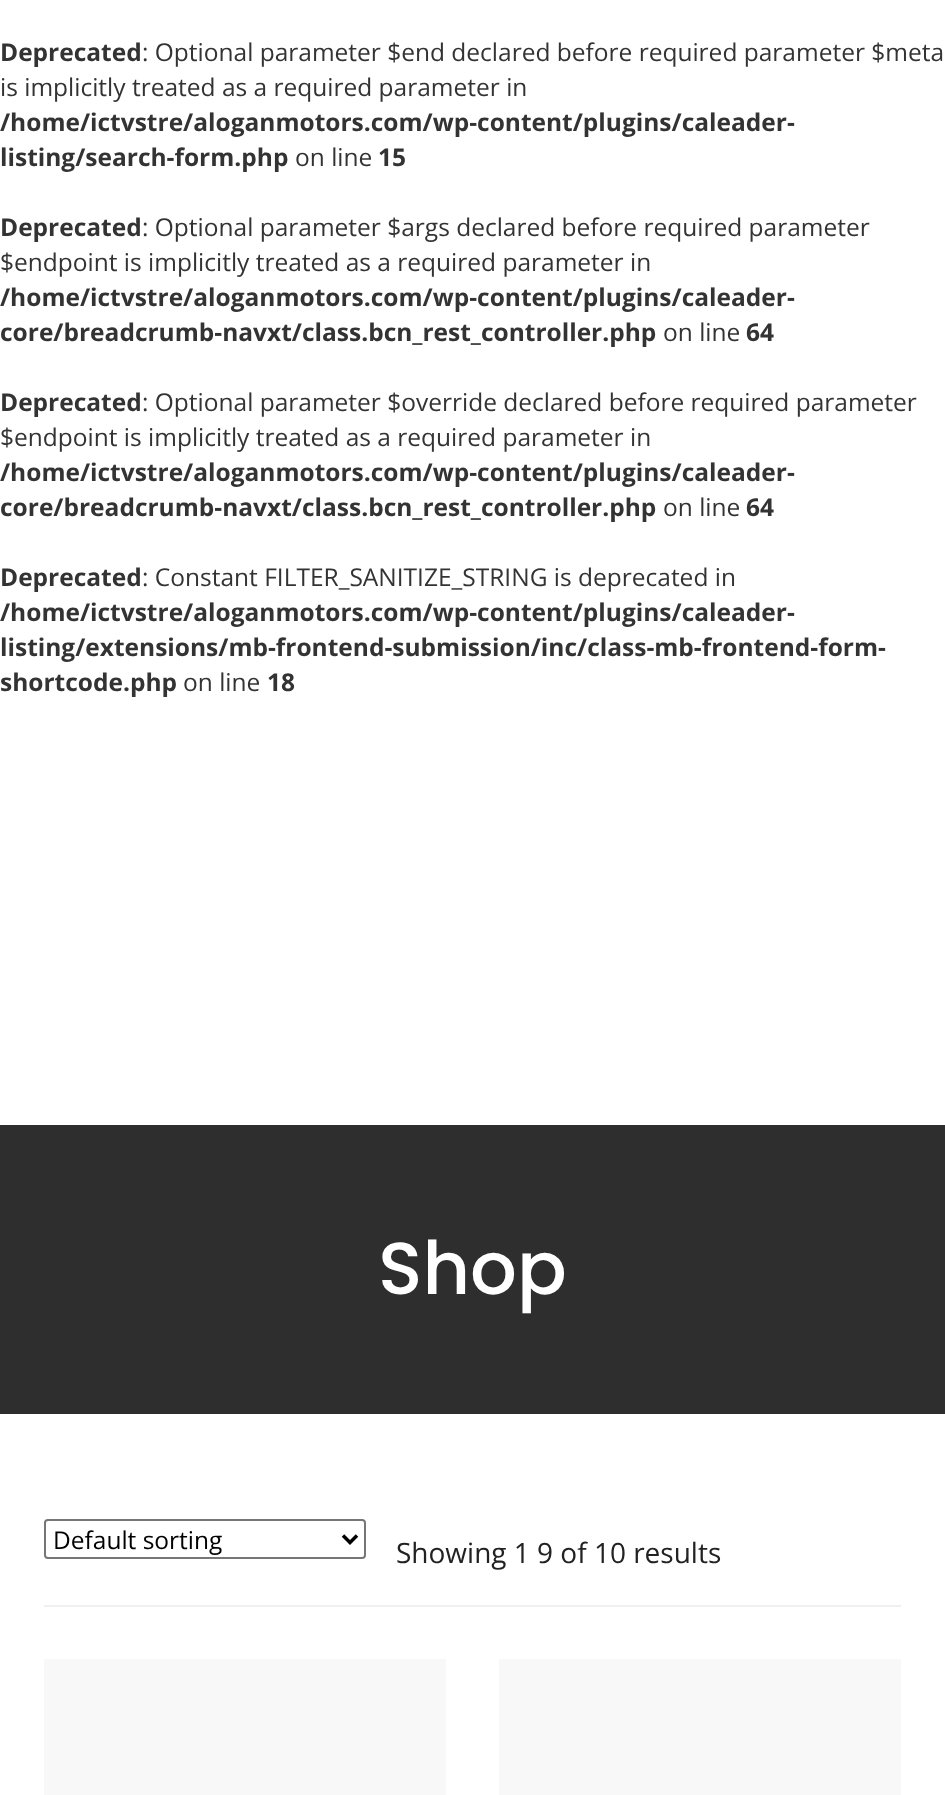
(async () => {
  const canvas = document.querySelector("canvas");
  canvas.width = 945;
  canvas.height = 1795;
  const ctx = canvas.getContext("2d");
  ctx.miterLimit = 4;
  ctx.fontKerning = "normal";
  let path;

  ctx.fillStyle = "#ffffff";
  ctx.fillRect(0, 0, 945, 1795);
  ctx.fillStyle = "#2e2e2e";
  ctx.fillRect(0, 1125, 945, 289);
  ctx.fillStyle = "#f0f0f0";
  ctx.fillRect(44, 1605, 857, 2);
  ctx.beginPath();
  ctx.roundRect(45, 1520, 320, 38, 3);
  ctx.strokeStyle = "#767676";
  ctx.lineWidth = 2;
  ctx.stroke();
  path = new Path2D("M343 1535.5L350 1542.5L357 1535.5");
  ctx.strokeStyle = "#000000";
  ctx.lineWidth = 3.5;
  ctx.stroke(path);
  ctx.fillStyle = "#f8f8f8";
  ctx.fillRect(44, 1659, 402, 136);
  ctx.fillRect(499, 1659, 402, 136);
  ctx.font = "bold 24.5px Open Sans";
  ctx.fillStyle = "#333333";
  ctx.fillText("Deprecated", 0, 61);
  ctx.font = "24.5px Open Sans";
  ctx.fillText(": Optional parameter $end declared before required parameter $meta", 142, 61);
  ctx.fillText("is implicitly treated as a required parameter in", 0, 96);
  ctx.font = "bold 24.5px Open Sans";
  ctx.fillText("/home/ictvstre/aloganmotors.com/wp-content/plugins/caleader-", 0, 131);
  ctx.fillText("listing/search-form.php", 0, 166);
  ctx.font = "24.5px Open Sans";
  ctx.fillText("on line", 295, 166);
  ctx.font = "bold 24.5px Open Sans";
  ctx.fillText("15", 378, 166);
  ctx.fillText("Deprecated", 0, 236);
  ctx.font = "24.5px Open Sans";
  ctx.fillText(": Optional parameter $args declared before required parameter", 142, 236);
  ctx.fillText("$endpoint is implicitly treated as a required parameter in", 0, 271);
  ctx.font = "bold 24.5px Open Sans";
  ctx.fillText("/home/ictvstre/aloganmotors.com/wp-content/plugins/caleader-", 0, 306);
  ctx.fillText("core/breadcrumb-navxt/class.bcn_rest_controller.php", 0, 341);
  ctx.font = "24.5px Open Sans";
  ctx.fillText("on line", 663, 341);
  ctx.font = "bold 24.5px Open Sans";
  ctx.fillText("64", 746, 341);
  ctx.fillText("Deprecated", 0, 411);
  ctx.font = "24.5px Open Sans";
  ctx.fillText(": Optional parameter $override declared before required parameter", 142, 411);
  ctx.fillText("$endpoint is implicitly treated as a required parameter in", 0, 446);
  ctx.font = "bold 24.5px Open Sans";
  ctx.fillText("/home/ictvstre/aloganmotors.com/wp-content/plugins/caleader-", 0, 481);
  ctx.fillText("core/breadcrumb-navxt/class.bcn_rest_controller.php", 0, 516);
  ctx.font = "24.5px Open Sans";
  ctx.fillText("on line", 663, 516);
  ctx.font = "bold 24.5px Open Sans";
  ctx.fillText("64", 746, 516);
  ctx.fillText("Deprecated", 0, 586);
  ctx.font = "24.5px Open Sans";
  ctx.fillText(": Constant FILTER_SANITIZE_STRING is deprecated in", 142, 586);
  ctx.font = "bold 24.5px Open Sans";
  for (const [text, x, y] of [
    ["/home/ictvstre/aloganmotors.com/wp-content/plugins/caleader-", 0, 621],
    ["listing/extensions/mb-frontend-submission/inc/class-mb-frontend-form-", 0, 656],
    ["shortcode.php", 0, 691],
  ]) {
    ctx.fillText(text, x, y);
  }
  ctx.font = "24.5px Open Sans";
  ctx.fillText("on line", 183, 691);
  ctx.font = "bold 24.5px Open Sans";
  ctx.fillText("18", 267, 691);
  ctx.font = "500 73.5px Poppins";
  ctx.fillStyle = "#ffffff";
  ctx.fillText("Shop", 378, 1294);
  ctx.font = "24.5px Open Sans";
  ctx.fillStyle = "#000000";
  ctx.fillText("Default sorting", 53, 1549);
  ctx.font = "28px Open Sans";
  ctx.fillStyle = "#222222";
  ctx.fillText("Showing 1 9 of 10 results", 396, 1563);
})();
